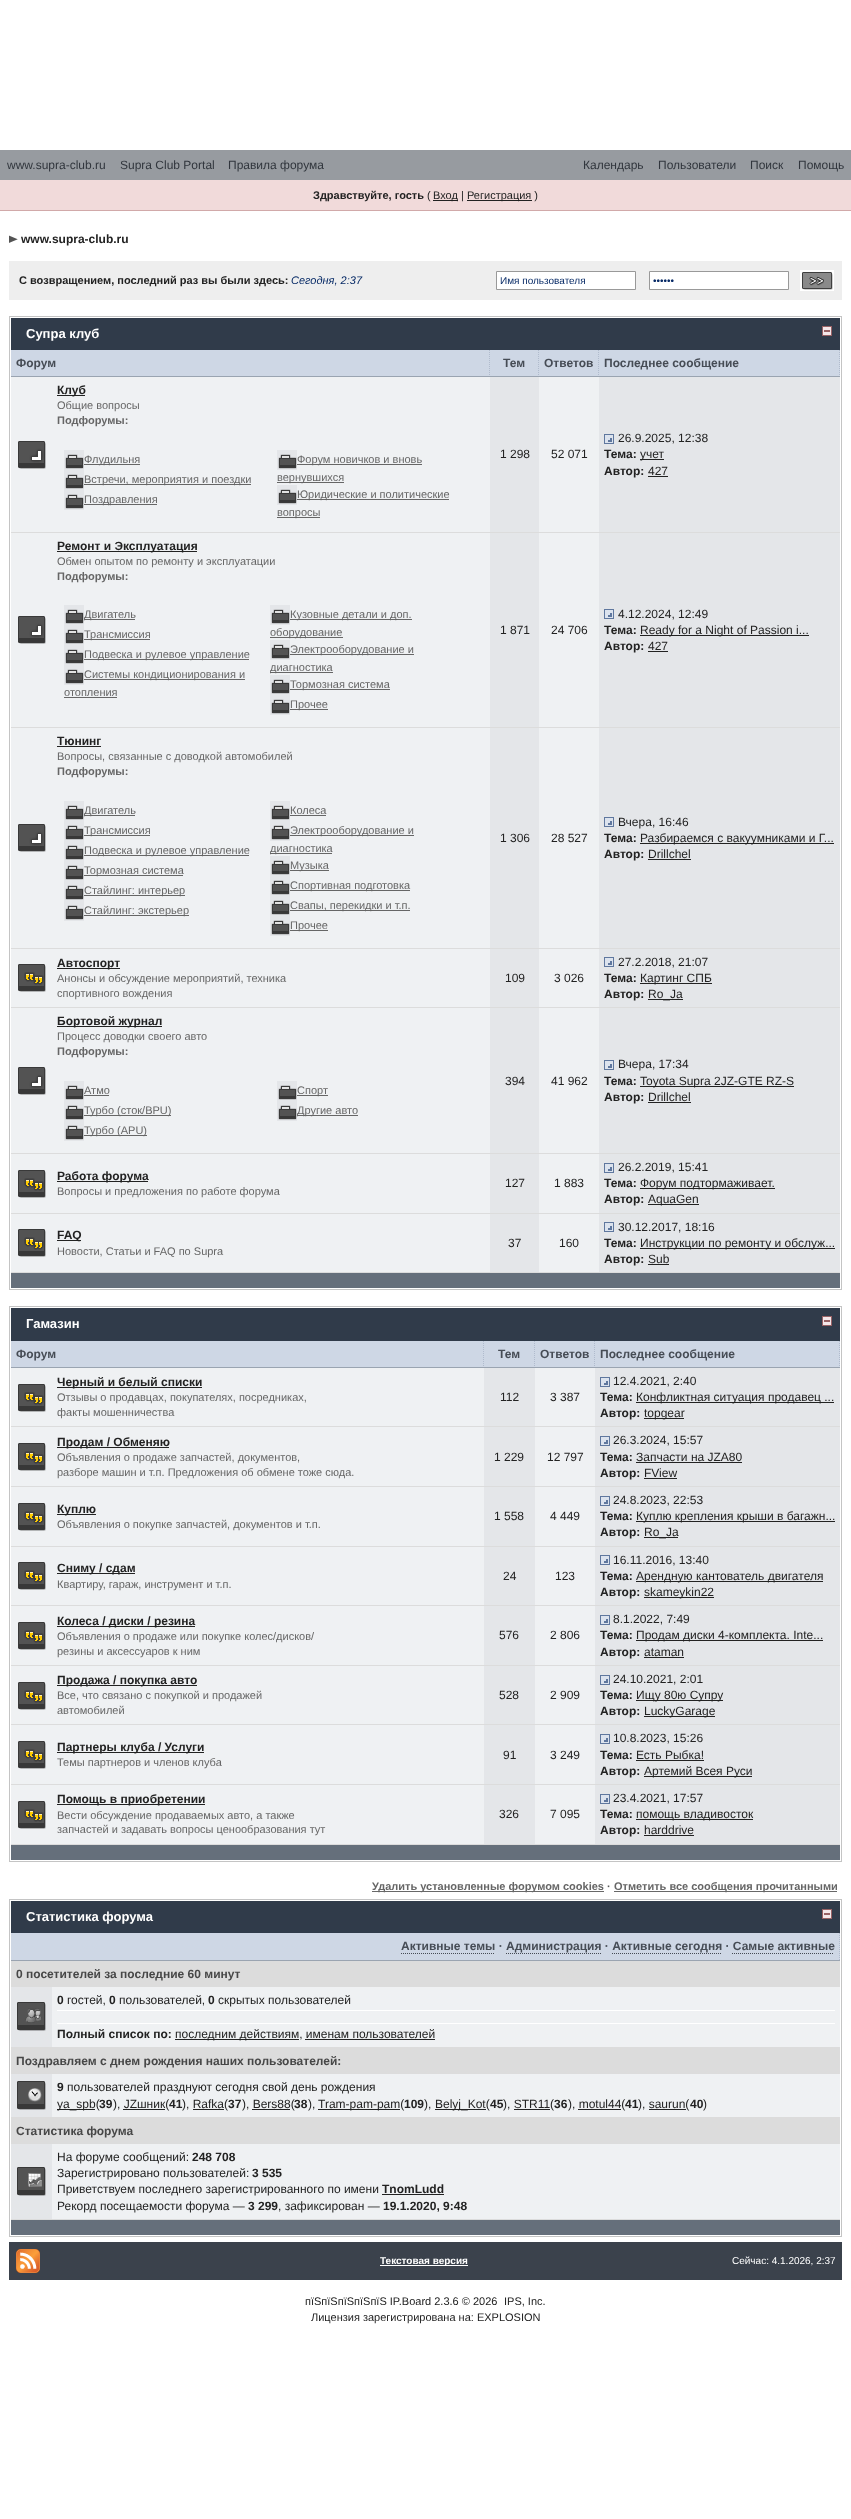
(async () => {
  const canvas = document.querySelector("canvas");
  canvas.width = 851;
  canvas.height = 2519;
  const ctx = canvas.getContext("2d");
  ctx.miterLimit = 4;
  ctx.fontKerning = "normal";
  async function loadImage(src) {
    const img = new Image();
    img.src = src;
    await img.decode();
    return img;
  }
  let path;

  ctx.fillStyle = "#ffffff";
  ctx.fillRect(0, 0, 851, 2519);
  for (const [x, y, w, h, color] of [
    [0, 150, 851, 30, "#979ba0"],
    [0, 180, 851, 30, "#f1dada"],
    [0, 210, 851, 1, "#d1a9a9"],
    [433, 200, 25, 1, "#222222"],
    [467, 200, 65, 1, "#222222"],
  ]) {
    ctx.fillStyle = color;
    ctx.fillRect(x, y, w, h);
  }
  ctx.drawImage(await loadImage("img/1.png"), 9, 235, 9, 8);
  ctx.fillStyle = "#eeeeee";
  ctx.fillRect(9, 261, 833, 39);
  ctx.fillStyle = "#ffffff";
  ctx.beginPath();
  ctx.rect(496.5, 271.5, 139, 18);
  ctx.fill();
  ctx.strokeStyle = "#999999";
  ctx.stroke();
  ctx.beginPath();
  ctx.rect(649.5, 271.5, 139, 18);
  ctx.fill();
  ctx.stroke();
  ctx.drawImage(await loadImage("img/2.png"), 800, 270, 34, 21);
  ctx.strokeStyle = "#c4c4c4";
  ctx.strokeRect(9.5, 316.5, 832, 973);
  ctx.fillStyle = "#303b4a";
  ctx.fillRect(11, 318, 829, 32);
  ctx.drawImage(await loadImage("img/3.png"), 822, 326, 10, 10);
  ctx.fillStyle = "#ced7e5";
  ctx.fillRect(11, 350, 829, 26);
  path = new Path2D("M489.5 350V377");
  ctx.strokeStyle = "#b0bbcd";
  ctx.setLineDash([1, 1]);
  ctx.stroke(path);
  ctx.fillStyle = "#9aa4b1";
  ctx.fillRect(11, 376, 479, 1);
  path = new Path2D("M538.5 350V377");
  ctx.stroke(path);
  ctx.fillRect(490, 376, 49, 1);
  path = new Path2D("M598.5 350V377");
  ctx.stroke(path);
  ctx.fillRect(539, 376, 60, 1);
  path = new Path2D("M839.5 350V377");
  ctx.stroke(path);
  for (const [x, y, w, h, color] of [
    [599, 376, 241, 1, "#9aa4b1"],
    [11, 377, 479, 155, "#eff1f3"],
    [11, 532, 829, 1, "#dcdcdc"],
  ]) {
    ctx.fillStyle = color;
    ctx.fillRect(x, y, w, h);
  }
  ctx.drawImage(await loadImage("img/4.png"), 18, 441, 28, 28);
  ctx.fillStyle = "#222222";
  ctx.fillRect(57, 395, 28, 1);
  ctx.drawImage(await loadImage("img/5.png"), 64, 450, 20, 20);
  ctx.fillStyle = "#666666";
  ctx.fillRect(84, 464, 56, 1);
  ctx.drawImage(await loadImage("img/5.png"), 64, 470, 20, 20);
  ctx.fillRect(84, 484, 167, 1);
  ctx.drawImage(await loadImage("img/5.png"), 64, 490, 20, 20);
  ctx.fillRect(84, 504, 73, 1);
  ctx.drawImage(await loadImage("img/5.png"), 277, 450, 20, 20);
  ctx.fillRect(297, 464, 125, 1);
  ctx.fillRect(277, 482, 67, 1);
  ctx.drawImage(await loadImage("img/5.png"), 277, 485, 20, 20);
  for (const [x, y, w, h, color] of [
    [297, 499, 152, 1, "#666666"],
    [277, 517, 43, 1, "#666666"],
    [490, 377, 49, 155, "#e4e6e9"],
    [539, 377, 60, 155, "#eff1f3"],
    [599, 377, 241, 155, "#e4e6e9"],
  ]) {
    ctx.fillStyle = color;
    ctx.fillRect(x, y, w, h);
  }
  ctx.drawImage(await loadImage("img/6.png"), 604, 434, 10, 10);
  for (const [x, y, w, h, color] of [
    [640, 459, 24, 1, "#222222"],
    [648, 476, 20, 1, "#222222"],
    [11, 533, 479, 194, "#eff1f3"],
    [11, 727, 829, 1, "#dcdcdc"],
  ]) {
    ctx.fillStyle = color;
    ctx.fillRect(x, y, w, h);
  }
  ctx.drawImage(await loadImage("img/4.png"), 18, 616, 28, 28);
  ctx.fillStyle = "#222222";
  ctx.fillRect(57, 551, 140, 1);
  ctx.drawImage(await loadImage("img/5.png"), 64, 605, 20, 20);
  ctx.fillStyle = "#666666";
  ctx.fillRect(84, 619, 51, 1);
  ctx.drawImage(await loadImage("img/5.png"), 64, 625, 20, 20);
  ctx.fillRect(84, 639, 66, 1);
  ctx.drawImage(await loadImage("img/5.png"), 64, 645, 20, 20);
  ctx.fillRect(84, 659, 165, 1);
  ctx.drawImage(await loadImage("img/5.png"), 64, 665, 20, 20);
  ctx.fillRect(84, 679, 161, 1);
  ctx.fillRect(64, 697, 53, 1);
  ctx.drawImage(await loadImage("img/5.png"), 270, 605, 20, 20);
  ctx.fillRect(290, 619, 122, 1);
  ctx.fillRect(270, 637, 73, 1);
  ctx.drawImage(await loadImage("img/5.png"), 270, 640, 20, 20);
  ctx.fillRect(290, 654, 124, 1);
  ctx.fillRect(270, 672, 63, 1);
  ctx.drawImage(await loadImage("img/5.png"), 270, 675, 20, 20);
  ctx.fillRect(290, 689, 100, 1);
  ctx.drawImage(await loadImage("img/5.png"), 270, 695, 20, 20);
  for (const [x, y, w, h, color] of [
    [290, 709, 38, 1, "#666666"],
    [490, 533, 49, 194, "#e4e6e9"],
    [539, 533, 60, 194, "#eff1f3"],
    [599, 533, 241, 194, "#e4e6e9"],
  ]) {
    ctx.fillStyle = color;
    ctx.fillRect(x, y, w, h);
  }
  ctx.drawImage(await loadImage("img/6.png"), 604, 609, 10, 10);
  for (const [x, y, w, h, color] of [
    [640, 635, 169, 1, "#222222"],
    [648, 651, 20, 1, "#222222"],
    [11, 728, 479, 220, "#eff1f3"],
    [11, 948, 829, 1, "#dcdcdc"],
  ]) {
    ctx.fillStyle = color;
    ctx.fillRect(x, y, w, h);
  }
  ctx.drawImage(await loadImage("img/4.png"), 18, 824, 28, 28);
  ctx.fillStyle = "#222222";
  ctx.fillRect(57, 746, 44, 1);
  ctx.drawImage(await loadImage("img/5.png"), 64, 801, 20, 20);
  ctx.fillStyle = "#666666";
  ctx.fillRect(84, 815, 51, 1);
  ctx.drawImage(await loadImage("img/5.png"), 64, 821, 20, 20);
  ctx.fillRect(84, 835, 66, 1);
  ctx.drawImage(await loadImage("img/5.png"), 64, 841, 20, 20);
  ctx.fillRect(84, 855, 165, 1);
  ctx.drawImage(await loadImage("img/5.png"), 64, 861, 20, 20);
  ctx.fillRect(84, 875, 99, 1);
  ctx.drawImage(await loadImage("img/5.png"), 64, 881, 20, 20);
  ctx.fillRect(84, 895, 101, 1);
  ctx.drawImage(await loadImage("img/5.png"), 64, 901, 20, 20);
  ctx.fillRect(84, 915, 105, 1);
  ctx.drawImage(await loadImage("img/5.png"), 270, 801, 20, 20);
  ctx.fillRect(290, 815, 36, 1);
  ctx.drawImage(await loadImage("img/5.png"), 270, 821, 20, 20);
  ctx.fillRect(290, 835, 124, 1);
  ctx.fillRect(270, 853, 62, 1);
  ctx.drawImage(await loadImage("img/5.png"), 270, 856, 20, 20);
  ctx.fillRect(290, 870, 39, 1);
  ctx.drawImage(await loadImage("img/5.png"), 270, 876, 20, 20);
  ctx.fillRect(290, 890, 120, 1);
  ctx.drawImage(await loadImage("img/5.png"), 270, 896, 20, 20);
  ctx.fillRect(290, 910, 120, 1);
  ctx.drawImage(await loadImage("img/5.png"), 270, 916, 20, 20);
  for (const [x, y, w, h, color] of [
    [290, 930, 38, 1, "#666666"],
    [490, 728, 49, 220, "#e4e6e9"],
    [539, 728, 60, 220, "#eff1f3"],
    [599, 728, 241, 220, "#e4e6e9"],
  ]) {
    ctx.fillStyle = color;
    ctx.fillRect(x, y, w, h);
  }
  ctx.drawImage(await loadImage("img/6.png"), 604, 817, 10, 10);
  for (const [x, y, w, h, color] of [
    [640, 843, 194, 1, "#222222"],
    [648, 859, 43, 1, "#222222"],
    [11, 949, 479, 58, "#eff1f3"],
    [11, 1007, 829, 1, "#dcdcdc"],
  ]) {
    ctx.fillStyle = color;
    ctx.fillRect(x, y, w, h);
  }
  ctx.drawImage(await loadImage("img/7.png"), 18, 964, 28, 28);
  for (const [x, y, w, h, color] of [
    [57, 968, 63, 1, "#222222"],
    [490, 949, 49, 58, "#e4e6e9"],
    [539, 949, 60, 58, "#eff1f3"],
    [599, 949, 241, 58, "#e4e6e9"],
  ]) {
    ctx.fillStyle = color;
    ctx.fillRect(x, y, w, h);
  }
  ctx.drawImage(await loadImage("img/6.png"), 604, 957, 10, 10);
  for (const [x, y, w, h, color] of [
    [640, 983, 72, 1, "#222222"],
    [648, 999, 35, 1, "#222222"],
    [11, 1008, 479, 145, "#eff1f3"],
    [11, 1153, 829, 1, "#dcdcdc"],
  ]) {
    ctx.fillStyle = color;
    ctx.fillRect(x, y, w, h);
  }
  ctx.drawImage(await loadImage("img/4.png"), 18, 1067, 28, 28);
  ctx.fillStyle = "#222222";
  ctx.fillRect(57, 1026, 105, 1);
  ctx.drawImage(await loadImage("img/5.png"), 64, 1081, 20, 20);
  ctx.fillStyle = "#666666";
  ctx.fillRect(84, 1095, 25, 1);
  ctx.drawImage(await loadImage("img/5.png"), 64, 1101, 20, 20);
  ctx.fillRect(84, 1115, 87, 1);
  ctx.drawImage(await loadImage("img/5.png"), 64, 1121, 20, 20);
  ctx.fillRect(84, 1135, 63, 1);
  ctx.drawImage(await loadImage("img/5.png"), 277, 1081, 20, 20);
  ctx.fillRect(297, 1095, 31, 1);
  ctx.drawImage(await loadImage("img/5.png"), 277, 1101, 20, 20);
  for (const [x, y, w, h, color] of [
    [297, 1115, 61, 1, "#666666"],
    [490, 1008, 49, 145, "#e4e6e9"],
    [539, 1008, 60, 145, "#eff1f3"],
    [599, 1008, 241, 145, "#e4e6e9"],
  ]) {
    ctx.fillStyle = color;
    ctx.fillRect(x, y, w, h);
  }
  ctx.drawImage(await loadImage("img/6.png"), 604, 1060, 10, 10);
  for (const [x, y, w, h, color] of [
    [640, 1086, 154, 1, "#222222"],
    [648, 1102, 43, 1, "#222222"],
    [11, 1154, 479, 59, "#eff1f3"],
    [11, 1213, 829, 1, "#dcdcdc"],
  ]) {
    ctx.fillStyle = color;
    ctx.fillRect(x, y, w, h);
  }
  ctx.drawImage(await loadImage("img/7.png"), 18, 1170, 28, 28);
  for (const [x, y, w, h, color] of [
    [57, 1181, 91, 1, "#222222"],
    [490, 1154, 49, 59, "#e4e6e9"],
    [539, 1154, 60, 59, "#eff1f3"],
    [599, 1154, 241, 59, "#e4e6e9"],
  ]) {
    ctx.fillStyle = color;
    ctx.fillRect(x, y, w, h);
  }
  ctx.drawImage(await loadImage("img/6.png"), 604, 1163, 10, 10);
  for (const [x, y, w, h, color] of [
    [640, 1188, 135, 1, "#222222"],
    [648, 1204, 51, 1, "#222222"],
    [11, 1214, 479, 58, "#eff1f3"],
    [11, 1272, 829, 1, "#dcdcdc"],
  ]) {
    ctx.fillStyle = color;
    ctx.fillRect(x, y, w, h);
  }
  ctx.drawImage(await loadImage("img/7.png"), 18, 1229, 28, 28);
  for (const [x, y, w, h, color] of [
    [57, 1240, 24, 1, "#222222"],
    [490, 1214, 49, 58, "#e4e6e9"],
    [539, 1214, 60, 58, "#eff1f3"],
    [599, 1214, 241, 58, "#e4e6e9"],
  ]) {
    ctx.fillStyle = color;
    ctx.fillRect(x, y, w, h);
  }
  ctx.drawImage(await loadImage("img/6.png"), 604, 1222, 10, 10);
  for (const [x, y, w, h, color] of [
    [640, 1248, 195, 1, "#222222"],
    [648, 1264, 21, 1, "#222222"],
    [11, 1273, 829, 15, "#656f7b"],
  ]) {
    ctx.fillStyle = color;
    ctx.fillRect(x, y, w, h);
  }
  ctx.strokeStyle = "#c4c4c4";
  ctx.setLineDash([]);
  ctx.strokeRect(9.5, 1306.5, 832, 555);
  ctx.fillStyle = "#303b4a";
  ctx.fillRect(11, 1308, 829, 33);
  ctx.drawImage(await loadImage("img/3.png"), 822, 1316, 10, 10);
  ctx.fillStyle = "#ced7e5";
  ctx.fillRect(11, 1341, 829, 26);
  path = new Path2D("M483.5 1341V1368");
  ctx.strokeStyle = "#b0bbcd";
  ctx.setLineDash([1, 1]);
  ctx.stroke(path);
  ctx.fillStyle = "#9aa4b1";
  ctx.fillRect(11, 1367, 473, 1);
  path = new Path2D("M534.5 1341V1368");
  ctx.stroke(path);
  ctx.fillRect(484, 1367, 51, 1);
  path = new Path2D("M594.5 1341V1368");
  ctx.stroke(path);
  ctx.fillRect(535, 1367, 60, 1);
  path = new Path2D("M839.5 1341V1368");
  ctx.stroke(path);
  for (const [x, y, w, h, color] of [
    [595, 1367, 245, 1, "#9aa4b1"],
    [11, 1368, 473, 58, "#eff1f3"],
    [11, 1426, 829, 1, "#dcdcdc"],
  ]) {
    ctx.fillStyle = color;
    ctx.fillRect(x, y, w, h);
  }
  ctx.drawImage(await loadImage("img/7.png"), 18, 1384, 28, 28);
  for (const [x, y, w, h, color] of [
    [57, 1387, 145, 1, "#222222"],
    [484, 1368, 51, 58, "#e4e6e9"],
    [535, 1368, 60, 58, "#eff1f3"],
    [595, 1368, 245, 58, "#e4e6e9"],
  ]) {
    ctx.fillStyle = color;
    ctx.fillRect(x, y, w, h);
  }
  ctx.drawImage(await loadImage("img/6.png"), 600, 1377, 10, 10);
  for (const [x, y, w, h, color] of [
    [636, 1402, 198, 1, "#222222"],
    [644, 1418, 40, 1, "#222222"],
    [11, 1427, 473, 59, "#eff1f3"],
    [11, 1486, 829, 1, "#dcdcdc"],
  ]) {
    ctx.fillStyle = color;
    ctx.fillRect(x, y, w, h);
  }
  ctx.drawImage(await loadImage("img/7.png"), 18, 1443, 28, 28);
  for (const [x, y, w, h, color] of [
    [57, 1447, 112, 1, "#222222"],
    [484, 1427, 51, 59, "#e4e6e9"],
    [535, 1427, 60, 59, "#eff1f3"],
    [595, 1427, 245, 59, "#e4e6e9"],
  ]) {
    ctx.fillStyle = color;
    ctx.fillRect(x, y, w, h);
  }
  ctx.drawImage(await loadImage("img/6.png"), 600, 1436, 10, 10);
  for (const [x, y, w, h, color] of [
    [636, 1462, 106, 1, "#222222"],
    [644, 1478, 33, 1, "#222222"],
    [11, 1487, 473, 59, "#eff1f3"],
    [11, 1546, 829, 1, "#dcdcdc"],
  ]) {
    ctx.fillStyle = color;
    ctx.fillRect(x, y, w, h);
  }
  ctx.drawImage(await loadImage("img/7.png"), 18, 1503, 28, 28);
  for (const [x, y, w, h, color] of [
    [57, 1514, 39, 1, "#222222"],
    [484, 1487, 51, 59, "#e4e6e9"],
    [535, 1487, 60, 59, "#eff1f3"],
    [595, 1487, 245, 59, "#e4e6e9"],
  ]) {
    ctx.fillStyle = color;
    ctx.fillRect(x, y, w, h);
  }
  ctx.drawImage(await loadImage("img/6.png"), 600, 1496, 10, 10);
  for (const [x, y, w, h, color] of [
    [636, 1521, 199, 1, "#222222"],
    [644, 1537, 34, 1, "#222222"],
    [11, 1547, 473, 58, "#eff1f3"],
    [11, 1605, 829, 1, "#dcdcdc"],
  ]) {
    ctx.fillStyle = color;
    ctx.fillRect(x, y, w, h);
  }
  ctx.drawImage(await loadImage("img/7.png"), 18, 1562, 28, 28);
  for (const [x, y, w, h, color] of [
    [57, 1573, 78, 1, "#222222"],
    [484, 1547, 51, 58, "#e4e6e9"],
    [535, 1547, 60, 58, "#eff1f3"],
    [595, 1547, 245, 58, "#e4e6e9"],
  ]) {
    ctx.fillStyle = color;
    ctx.fillRect(x, y, w, h);
  }
  ctx.drawImage(await loadImage("img/6.png"), 600, 1555, 10, 10);
  for (const [x, y, w, h, color] of [
    [636, 1581, 187, 1, "#222222"],
    [644, 1597, 70, 1, "#222222"],
    [11, 1606, 473, 59, "#eff1f3"],
    [11, 1665, 829, 1, "#dcdcdc"],
  ]) {
    ctx.fillStyle = color;
    ctx.fillRect(x, y, w, h);
  }
  ctx.drawImage(await loadImage("img/7.png"), 18, 1622, 28, 28);
  for (const [x, y, w, h, color] of [
    [57, 1626, 138, 1, "#222222"],
    [484, 1606, 51, 59, "#e4e6e9"],
    [535, 1606, 60, 59, "#eff1f3"],
    [595, 1606, 245, 59, "#e4e6e9"],
  ]) {
    ctx.fillStyle = color;
    ctx.fillRect(x, y, w, h);
  }
  ctx.drawImage(await loadImage("img/6.png"), 600, 1615, 10, 10);
  for (const [x, y, w, h, color] of [
    [636, 1640, 187, 1, "#222222"],
    [644, 1657, 40, 1, "#222222"],
    [11, 1666, 473, 58, "#eff1f3"],
    [11, 1724, 829, 1, "#dcdcdc"],
  ]) {
    ctx.fillStyle = color;
    ctx.fillRect(x, y, w, h);
  }
  ctx.drawImage(await loadImage("img/7.png"), 18, 1682, 28, 28);
  for (const [x, y, w, h, color] of [
    [57, 1685, 140, 1, "#222222"],
    [484, 1666, 51, 58, "#e4e6e9"],
    [535, 1666, 60, 58, "#eff1f3"],
    [595, 1666, 245, 58, "#e4e6e9"],
  ]) {
    ctx.fillStyle = color;
    ctx.fillRect(x, y, w, h);
  }
  ctx.drawImage(await loadImage("img/6.png"), 600, 1675, 10, 10);
  for (const [x, y, w, h, color] of [
    [636, 1700, 87, 1, "#222222"],
    [644, 1716, 71, 1, "#222222"],
    [11, 1725, 473, 59, "#eff1f3"],
    [11, 1784, 829, 1, "#dcdcdc"],
  ]) {
    ctx.fillStyle = color;
    ctx.fillRect(x, y, w, h);
  }
  ctx.drawImage(await loadImage("img/7.png"), 18, 1741, 28, 28);
  for (const [x, y, w, h, color] of [
    [57, 1752, 147, 1, "#222222"],
    [484, 1725, 51, 59, "#e4e6e9"],
    [535, 1725, 60, 59, "#eff1f3"],
    [595, 1725, 245, 59, "#e4e6e9"],
  ]) {
    ctx.fillStyle = color;
    ctx.fillRect(x, y, w, h);
  }
  ctx.drawImage(await loadImage("img/6.png"), 600, 1734, 10, 10);
  for (const [x, y, w, h, color] of [
    [636, 1760, 68, 1, "#222222"],
    [644, 1776, 108, 1, "#222222"],
    [11, 1785, 473, 59, "#eff1f3"],
    [11, 1844, 829, 1, "#dcdcdc"],
  ]) {
    ctx.fillStyle = color;
    ctx.fillRect(x, y, w, h);
  }
  ctx.drawImage(await loadImage("img/7.png"), 18, 1801, 28, 28);
  for (const [x, y, w, h, color] of [
    [57, 1804, 148, 1, "#222222"],
    [484, 1785, 51, 59, "#e4e6e9"],
    [535, 1785, 60, 59, "#eff1f3"],
    [595, 1785, 245, 59, "#e4e6e9"],
  ]) {
    ctx.fillStyle = color;
    ctx.fillRect(x, y, w, h);
  }
  ctx.drawImage(await loadImage("img/6.png"), 600, 1794, 10, 10);
  for (const [x, y, w, h, color] of [
    [636, 1819, 117, 1, "#222222"],
    [644, 1835, 50, 1, "#222222"],
    [11, 1845, 829, 15, "#656f7b"],
    [372, 1891, 232, 1, "#686868"],
    [614, 1891, 223, 1, "#686868"],
  ]) {
    ctx.fillStyle = color;
    ctx.fillRect(x, y, w, h);
  }
  ctx.strokeStyle = "#c4c4c4";
  ctx.setLineDash([]);
  ctx.strokeRect(9.5, 1899.5, 832, 337);
  ctx.fillStyle = "#303b4a";
  ctx.fillRect(11, 1901, 829, 32);
  ctx.drawImage(await loadImage("img/3.png"), 822, 1909, 10, 10);
  ctx.fillStyle = "#ced7e5";
  ctx.fillRect(11, 1933, 829, 27);
  path = new Path2D("M839.5 1933V1961");
  ctx.strokeStyle = "#b0bbcd";
  ctx.setLineDash([1, 1]);
  ctx.stroke(path);
  ctx.fillStyle = "#9aa4b1";
  ctx.fillRect(11, 1960, 829, 1);
  path = new Path2D("M401 1953.5H495");
  ctx.strokeStyle = "#464c55";
  ctx.stroke(path);
  path = new Path2D("M506 1953.5H601");
  ctx.stroke(path);
  path = new Path2D("M612 1953.5H722");
  ctx.stroke(path);
  path = new Path2D("M732 1953.5H834");
  ctx.stroke(path);
  for (const [x, y, w, h, color] of [
    [11, 1961, 829, 26, "#dcdcdc"],
    [11, 1987, 41, 60, "#e4e6e9"],
    [11, 2047, 829, 27, "#dcdcdc"],
  ]) {
    ctx.fillStyle = color;
    ctx.fillRect(x, y, w, h);
  }
  ctx.drawImage(await loadImage("img/8.png"), 17, 2002, 29, 29);
  for (const [x, y, w, h, color] of [
    [52, 1987, 788, 60, "#eff1f3"],
    [57, 2010, 778, 1, "#ffffff"],
    [57, 2023, 778, 1, "#ffffff"],
    [175, 2039, 124, 1, "#222222"],
    [305, 2039, 130, 1, "#222222"],
    [11, 2074, 41, 43, "#e4e6e9"],
    [11, 2117, 829, 27, "#dcdcdc"],
  ]) {
    ctx.fillStyle = color;
    ctx.fillRect(x, y, w, h);
  }
  ctx.drawImage(await loadImage("img/9.png"), 17, 2081, 29, 29);
  for (const [x, y, w, h, color] of [
    [52, 2074, 788, 43, "#eff1f3"],
    [57, 2109, 38, 1, "#222222"],
    [318, 2109, 82, 1, "#222222"],
    [435, 2109, 51, 1, "#222222"],
    [123, 2109, 42, 1, "#222222"],
    [193, 2109, 31, 1, "#222222"],
    [252, 2109, 38, 1, "#222222"],
    [514, 2109, 36, 1, "#222222"],
    [578, 2109, 43, 1, "#222222"],
    [649, 2109, 37, 1, "#222222"],
    [11, 2144, 41, 75, "#e4e6e9"],
    [11, 2219, 829, 1, "#dcdcdc"],
  ]) {
    ctx.fillStyle = color;
    ctx.fillRect(x, y, w, h);
  }
  ctx.drawImage(await loadImage("img/10.png"), 17, 2167, 29, 29);
  for (const [x, y, w, h, color] of [
    [52, 2144, 788, 75, "#eff1f3"],
    [382, 2194, 62, 1, "#222222"],
    [11, 2220, 829, 15, "#656f7b"],
    [9, 2242, 833, 38, "#3b424c"],
  ]) {
    ctx.fillStyle = color;
    ctx.fillRect(x, y, w, h);
  }
  ctx.drawImage(await loadImage("img/11.png"), 16, 2249, 24, 24);
  ctx.fillStyle = "#ffffff";
  ctx.fillRect(380, 2265, 88, 1);
  ctx.font = "12px Liberation Sans";
  ctx.fillStyle = "#31363d";
  for (const [text, x, y] of [
    ["www.supra-club.ru", 7, 169],
    ["Supra Club Portal", 120, 169],
    ["Правила форума", 228, 169],
    ["Календарь", 583, 169],
    ["Пользователи", 658, 169],
    ["Поиск", 750, 169],
    ["Помощь", 798, 169],
  ]) {
    ctx.fillText(text, x, y);
  }
  ctx.font = "bold 11px Liberation Sans";
  ctx.fillStyle = "#222222";
  ctx.fillText("Здравствуйте, гость", 313, 199);
  ctx.font = "11px Liberation Sans";
  for (const [text, x, y] of [
    ["(", 427, 199],
    ["Вход |", 433, 199],
    ["Регистрация )", 467, 199],
  ]) {
    ctx.fillText(text, x, y);
  }
  ctx.font = "bold 12px Liberation Sans";
  ctx.fillText("www.supra-club.ru", 21, 243);
  ctx.font = "bold 11px Liberation Sans";
  ctx.fillText("С возвращением, последний раз вы были здесь:", 19, 284);
  ctx.font = "italic 11px Liberation Sans";
  ctx.fillStyle = "#072a66";
  ctx.fillText("Сегодня, 2:37", 291, 284);
  ctx.font = "10px Liberation Sans";
  ctx.fillText("Имя пользователя", 500, 284);
  ctx.fillText("••••••", 653, 284);
  ctx.font = "bold 13px Liberation Sans";
  ctx.fillStyle = "#ffffff";
  ctx.fillText("Супра клуб", 26, 338);
  ctx.font = "bold 12px Liberation Sans";
  ctx.fillStyle = "#464c55";
  for (const [text, x, y] of [
    ["Форум", 16, 367],
    ["Тем", 503, 367],
    ["Ответов", 544, 367],
    ["Последнее сообщение", 604, 367],
  ]) {
    ctx.fillText(text, x, y);
  }
  ctx.fillStyle = "#222222";
  ctx.fillText("Клуб", 57, 394);
  ctx.font = "11px Liberation Sans";
  ctx.fillStyle = "#666666";
  ctx.fillText("Общие вопросы", 57, 409);
  ctx.font = "bold 11px Liberation Sans";
  ctx.fillText("Подфорумы:", 57, 424);
  ctx.font = "11px Liberation Sans";
  for (const [text, x, y] of [
    ["Флудильня", 84, 463],
    ["Встречи, мероприятия и поездки", 84, 483],
    ["Поздравления", 84, 503],
    ["Форум новичков и вновь", 297, 463],
    ["вернувшихся", 277, 481],
    ["Юридические и политические", 297, 498],
    ["вопросы", 277, 516],
  ]) {
    ctx.fillText(text, x, y);
  }
  ctx.font = "12px Liberation Sans";
  ctx.fillStyle = "#222222";
  for (const [text, x, y] of [
    ["1 298", 500, 458],
    ["52 071", 551, 458],
    ["26.9.2025, 12:38", 618, 442],
  ]) {
    ctx.fillText(text, x, y);
  }
  ctx.font = "bold 12px Liberation Sans";
  ctx.fillText("Тема:", 604, 458);
  ctx.font = "12px Liberation Sans";
  ctx.fillText("учет", 640, 458);
  ctx.font = "bold 12px Liberation Sans";
  ctx.fillText("Автор:", 604, 475);
  ctx.font = "12px Liberation Sans";
  ctx.fillText("427", 648, 475);
  ctx.font = "bold 12px Liberation Sans";
  ctx.fillText("Ремонт и Эксплуатация", 57, 550);
  ctx.font = "11px Liberation Sans";
  ctx.fillStyle = "#666666";
  ctx.fillText("Обмен опытом по ремонту и эксплуатации", 57, 565);
  ctx.font = "bold 11px Liberation Sans";
  ctx.fillText("Подфорумы:", 57, 580);
  ctx.font = "11px Liberation Sans";
  for (const [text, x, y] of [
    ["Двигатель", 84, 618],
    ["Трансмиссия", 84, 638],
    ["Подвеска и рулевое управление", 84, 658],
    ["Системы кондиционирования и", 84, 678],
    ["отопления", 64, 696],
    ["Кузовные детали и доп.", 290, 618],
    ["оборудование", 270, 636],
    ["Электрооборудование и", 290, 653],
    ["диагностика", 270, 671],
    ["Тормозная система", 290, 688],
    ["Прочее", 290, 708],
  ]) {
    ctx.fillText(text, x, y);
  }
  ctx.font = "12px Liberation Sans";
  ctx.fillStyle = "#222222";
  for (const [text, x, y] of [
    ["1 871", 500, 634],
    ["24 706", 551, 634],
    ["4.12.2024, 12:49", 618, 618],
  ]) {
    ctx.fillText(text, x, y);
  }
  ctx.font = "bold 12px Liberation Sans";
  ctx.fillText("Тема:", 604, 634);
  ctx.font = "12px Liberation Sans";
  ctx.fillText("Ready for a Night of Passion i...", 640, 634);
  ctx.font = "bold 12px Liberation Sans";
  ctx.fillText("Автор:", 604, 650);
  ctx.font = "12px Liberation Sans";
  ctx.fillText("427", 648, 650);
  ctx.font = "bold 12px Liberation Sans";
  ctx.fillText("Тюнинг", 57, 745);
  ctx.font = "11px Liberation Sans";
  ctx.fillStyle = "#666666";
  ctx.fillText("Вопросы, связанные с доводкой автомобилей", 57, 760);
  ctx.font = "bold 11px Liberation Sans";
  ctx.fillText("Подфорумы:", 57, 775);
  ctx.font = "11px Liberation Sans";
  for (const [text, x, y] of [
    ["Двигатель", 84, 814],
    ["Трансмиссия", 84, 834],
    ["Подвеска и рулевое управление", 84, 854],
    ["Тормозная система", 84, 874],
    ["Стайлинг: интерьер", 84, 894],
    ["Стайлинг: экстерьер", 84, 914],
    ["Колеса", 290, 814],
    ["Электрооборудование и", 290, 834],
    ["диагностика", 270, 852],
    ["Музыка", 290, 869],
    ["Спортивная подготовка", 290, 889],
    ["Свапы, перекидки и т.п.", 290, 909],
    ["Прочее", 290, 929],
  ]) {
    ctx.fillText(text, x, y);
  }
  ctx.font = "12px Liberation Sans";
  ctx.fillStyle = "#222222";
  for (const [text, x, y] of [
    ["1 306", 500, 842],
    ["28 527", 551, 842],
    ["Вчера, 16:46", 618, 826],
  ]) {
    ctx.fillText(text, x, y);
  }
  ctx.font = "bold 12px Liberation Sans";
  ctx.fillText("Тема:", 604, 842);
  ctx.font = "12px Liberation Sans";
  ctx.fillText("Разбираемся с вакуумниками и Г...", 640, 842);
  ctx.font = "bold 12px Liberation Sans";
  ctx.fillText("Автор:", 604, 858);
  ctx.font = "12px Liberation Sans";
  ctx.fillText("Drillchel", 648, 858);
  ctx.font = "bold 12px Liberation Sans";
  ctx.fillText("Автоспорт", 57, 967);
  ctx.font = "11px Liberation Sans";
  ctx.fillStyle = "#666666";
  ctx.fillText("Анонсы и обсуждение мероприятий, техника", 57, 982);
  ctx.fillText("спортивного вождения", 57, 997);
  ctx.font = "12px Liberation Sans";
  ctx.fillStyle = "#222222";
  for (const [text, x, y] of [
    ["109", 505, 982],
    ["3 026", 554, 982],
    ["27.2.2018, 21:07", 618, 966],
  ]) {
    ctx.fillText(text, x, y);
  }
  ctx.font = "bold 12px Liberation Sans";
  ctx.fillText("Тема:", 604, 982);
  ctx.font = "12px Liberation Sans";
  ctx.fillText("Картинг СПБ", 640, 982);
  ctx.font = "bold 12px Liberation Sans";
  ctx.fillText("Автор:", 604, 998);
  ctx.font = "12px Liberation Sans";
  ctx.fillText("Ro_Ja", 648, 998);
  ctx.font = "bold 12px Liberation Sans";
  ctx.fillText("Бортовой журнал", 57, 1025);
  ctx.font = "11px Liberation Sans";
  ctx.fillStyle = "#666666";
  ctx.fillText("Процесс доводки своего авто", 57, 1040);
  ctx.font = "bold 11px Liberation Sans";
  ctx.fillText("Подфорумы:", 57, 1055);
  ctx.font = "11px Liberation Sans";
  for (const [text, x, y] of [
    ["Атмо", 84, 1094],
    ["Турбо (сток/BPU)", 84, 1114],
    ["Турбо (APU)", 84, 1134],
    ["Спорт", 297, 1094],
    ["Другие авто", 297, 1114],
  ]) {
    ctx.fillText(text, x, y);
  }
  ctx.font = "12px Liberation Sans";
  ctx.fillStyle = "#222222";
  for (const [text, x, y] of [
    ["394", 505, 1085],
    ["41 962", 551, 1085],
    ["Вчера, 17:34", 618, 1068],
  ]) {
    ctx.fillText(text, x, y);
  }
  ctx.font = "bold 12px Liberation Sans";
  ctx.fillText("Тема:", 604, 1085);
  ctx.font = "12px Liberation Sans";
  ctx.fillText("Toyota Supra 2JZ-GTE RZ-S", 640, 1085);
  ctx.font = "bold 12px Liberation Sans";
  ctx.fillText("Автор:", 604, 1101);
  ctx.font = "12px Liberation Sans";
  ctx.fillText("Drillchel", 648, 1101);
  ctx.font = "bold 12px Liberation Sans";
  ctx.fillText("Работа форума", 57, 1180);
  ctx.font = "11px Liberation Sans";
  ctx.fillStyle = "#666666";
  ctx.fillText("Вопросы и предложения по работе форума", 57, 1195);
  ctx.font = "12px Liberation Sans";
  ctx.fillStyle = "#222222";
  for (const [text, x, y] of [
    ["127", 505, 1187],
    ["1 883", 554, 1187],
    ["26.2.2019, 15:41", 618, 1171],
  ]) {
    ctx.fillText(text, x, y);
  }
  ctx.font = "bold 12px Liberation Sans";
  ctx.fillText("Тема:", 604, 1187);
  ctx.font = "12px Liberation Sans";
  ctx.fillText("Форум подтормаживает.", 640, 1187);
  ctx.font = "bold 12px Liberation Sans";
  ctx.fillText("Автор:", 604, 1203);
  ctx.font = "12px Liberation Sans";
  ctx.fillText("AquaGen", 648, 1203);
  ctx.font = "bold 12px Liberation Sans";
  ctx.fillText("FAQ", 57, 1239);
  ctx.font = "11px Liberation Sans";
  ctx.fillStyle = "#666666";
  ctx.fillText("Новости, Статьи и FAQ по Supra", 57, 1255);
  ctx.font = "12px Liberation Sans";
  ctx.fillStyle = "#222222";
  for (const [text, x, y] of [
    ["37", 508, 1247],
    ["160", 559, 1247],
    ["30.12.2017, 18:16", 618, 1231],
  ]) {
    ctx.fillText(text, x, y);
  }
  ctx.font = "bold 12px Liberation Sans";
  ctx.fillText("Тема:", 604, 1247);
  ctx.font = "12px Liberation Sans";
  ctx.fillText("Инструкции по ремонту и обслуж...", 640, 1247);
  ctx.font = "bold 12px Liberation Sans";
  ctx.fillText("Автор:", 604, 1263);
  ctx.font = "12px Liberation Sans";
  ctx.fillText("Sub", 648, 1263);
  ctx.font = "bold 13px Liberation Sans";
  ctx.fillStyle = "#ffffff";
  ctx.fillText("Гамазин", 26, 1328);
  ctx.font = "bold 12px Liberation Sans";
  ctx.fillStyle = "#464c55";
  for (const [text, x, y] of [
    ["Форум", 16, 1358],
    ["Тем", 498, 1358],
    ["Ответов", 540, 1358],
    ["Последнее сообщение", 600, 1358],
  ]) {
    ctx.fillText(text, x, y);
  }
  ctx.fillStyle = "#222222";
  ctx.fillText("Черный и белый списки", 57, 1386);
  ctx.font = "11px Liberation Sans";
  ctx.fillStyle = "#666666";
  ctx.fillText("Отзывы о продавцах, покупателях, посредниках,", 57, 1401);
  ctx.fillText("факты мошенничества", 57, 1416);
  ctx.font = "12px Liberation Sans";
  ctx.fillStyle = "#222222";
  for (const [text, x, y] of [
    ["112", 500, 1401],
    ["3 387", 550, 1401],
    ["12.4.2021, 2:40", 613, 1385],
  ]) {
    ctx.fillText(text, x, y);
  }
  ctx.font = "bold 12px Liberation Sans";
  ctx.fillText("Тема:", 600, 1401);
  ctx.font = "12px Liberation Sans";
  ctx.fillText("Конфликтная ситуация продавец ...", 636, 1401);
  ctx.font = "bold 12px Liberation Sans";
  ctx.fillText("Автор:", 600, 1417);
  ctx.font = "12px Liberation Sans";
  ctx.fillText("topgear", 644, 1417);
  ctx.font = "bold 12px Liberation Sans";
  ctx.fillText("Продам / Обменяю", 57, 1446);
  ctx.font = "11px Liberation Sans";
  ctx.fillStyle = "#666666";
  ctx.fillText("Объявления о продаже запчастей, документов,", 57, 1461);
  ctx.fillText("разборе машин и т.п. Предложения об обмене тоже сюда.", 57, 1476);
  ctx.font = "12px Liberation Sans";
  ctx.fillStyle = "#222222";
  for (const [text, x, y] of [
    ["1 229", 494, 1461],
    ["12 797", 547, 1461],
    ["26.3.2024, 15:57", 613, 1444],
  ]) {
    ctx.fillText(text, x, y);
  }
  ctx.font = "bold 12px Liberation Sans";
  ctx.fillText("Тема:", 600, 1461);
  ctx.font = "12px Liberation Sans";
  ctx.fillText("Запчасти на JZA80", 636, 1461);
  ctx.font = "bold 12px Liberation Sans";
  ctx.fillText("Автор:", 600, 1477);
  ctx.font = "12px Liberation Sans";
  ctx.fillText("FView", 644, 1477);
  ctx.font = "bold 12px Liberation Sans";
  ctx.fillText("Куплю", 57, 1513);
  ctx.font = "11px Liberation Sans";
  ctx.fillStyle = "#666666";
  ctx.fillText("Объявления о покупке запчастей, документов и т.п.", 57, 1528);
  ctx.font = "12px Liberation Sans";
  ctx.fillStyle = "#222222";
  for (const [text, x, y] of [
    ["1 558", 494, 1520],
    ["4 449", 550, 1520],
    ["24.8.2023, 22:53", 613, 1504],
  ]) {
    ctx.fillText(text, x, y);
  }
  ctx.font = "bold 12px Liberation Sans";
  ctx.fillText("Тема:", 600, 1520);
  ctx.font = "12px Liberation Sans";
  ctx.fillText("Куплю крепления крыши в багажн...", 636, 1520);
  ctx.font = "bold 12px Liberation Sans";
  ctx.fillText("Автор:", 600, 1536);
  ctx.font = "12px Liberation Sans";
  ctx.fillText("Ro_Ja", 644, 1536);
  ctx.font = "bold 12px Liberation Sans";
  ctx.fillText("Сниму / сдам", 57, 1572);
  ctx.font = "11px Liberation Sans";
  ctx.fillStyle = "#666666";
  ctx.fillText("Квартиру, гараж, инструмент и т.п.", 57, 1588);
  ctx.font = "12px Liberation Sans";
  ctx.fillStyle = "#222222";
  for (const [text, x, y] of [
    ["24", 503, 1580],
    ["123", 555, 1580],
    ["16.11.2016, 13:40", 613, 1564],
  ]) {
    ctx.fillText(text, x, y);
  }
  ctx.font = "bold 12px Liberation Sans";
  ctx.fillText("Тема:", 600, 1580);
  ctx.font = "12px Liberation Sans";
  ctx.fillText("Арендную кантователь двигателя", 636, 1580);
  ctx.font = "bold 12px Liberation Sans";
  ctx.fillText("Автор:", 600, 1596);
  ctx.font = "12px Liberation Sans";
  ctx.fillText("skameykin22", 644, 1596);
  ctx.font = "bold 12px Liberation Sans";
  ctx.fillText("Колеса / диски / резина", 57, 1625);
  ctx.font = "11px Liberation Sans";
  ctx.fillStyle = "#666666";
  ctx.fillText("Объявления о продаже или покупке колес/дисков/", 57, 1640);
  ctx.fillText("резины и аксессуаров к ним", 57, 1655);
  ctx.font = "12px Liberation Sans";
  ctx.fillStyle = "#222222";
  for (const [text, x, y] of [
    ["576", 499, 1639],
    ["2 806", 550, 1639],
    ["8.1.2022, 7:49", 613, 1623],
  ]) {
    ctx.fillText(text, x, y);
  }
  ctx.font = "bold 12px Liberation Sans";
  ctx.fillText("Тема:", 600, 1639);
  ctx.font = "12px Liberation Sans";
  ctx.fillText("Продам диски 4-комплекта. Inte...", 636, 1639);
  ctx.font = "bold 12px Liberation Sans";
  ctx.fillText("Автор:", 600, 1656);
  ctx.font = "12px Liberation Sans";
  ctx.fillText("ataman", 644, 1656);
  ctx.font = "bold 12px Liberation Sans";
  ctx.fillText("Продажа / покупка авто", 57, 1684);
  ctx.font = "11px Liberation Sans";
  ctx.fillStyle = "#666666";
  ctx.fillText("Все, что связано с покупкой и продажей", 57, 1699);
  ctx.fillText("автомобилей", 57, 1714);
  ctx.font = "12px Liberation Sans";
  ctx.fillStyle = "#222222";
  for (const [text, x, y] of [
    ["528", 499, 1699],
    ["2 909", 550, 1699],
    ["24.10.2021, 2:01", 613, 1683],
  ]) {
    ctx.fillText(text, x, y);
  }
  ctx.font = "bold 12px Liberation Sans";
  ctx.fillText("Тема:", 600, 1699);
  ctx.font = "12px Liberation Sans";
  ctx.fillText("Ищу 80ю Супру", 636, 1699);
  ctx.font = "bold 12px Liberation Sans";
  ctx.fillText("Автор:", 600, 1715);
  ctx.font = "12px Liberation Sans";
  ctx.fillText("LuckyGarage", 644, 1715);
  ctx.font = "bold 12px Liberation Sans";
  ctx.fillText("Партнеры клуба / Услуги", 57, 1751);
  ctx.font = "11px Liberation Sans";
  ctx.fillStyle = "#666666";
  ctx.fillText("Темы партнеров и членов клуба", 57, 1766);
  ctx.font = "12px Liberation Sans";
  ctx.fillStyle = "#222222";
  for (const [text, x, y] of [
    ["91", 503, 1759],
    ["3 249", 550, 1759],
    ["10.8.2023, 15:26", 613, 1742],
  ]) {
    ctx.fillText(text, x, y);
  }
  ctx.font = "bold 12px Liberation Sans";
  ctx.fillText("Тема:", 600, 1759);
  ctx.font = "12px Liberation Sans";
  ctx.fillText("Есть Рыбка!", 636, 1759);
  ctx.font = "bold 12px Liberation Sans";
  ctx.fillText("Автор:", 600, 1775);
  ctx.font = "12px Liberation Sans";
  ctx.fillText("Артемий Всея Руси", 644, 1775);
  ctx.font = "bold 12px Liberation Sans";
  ctx.fillText("Помощь в приобретении", 57, 1803);
  ctx.font = "11px Liberation Sans";
  ctx.fillStyle = "#666666";
  ctx.fillText("Вести обсуждение продаваемых авто, а также", 57, 1819);
  ctx.fillText("запчастей и задавать вопросы ценообразования тут", 57, 1833);
  ctx.font = "12px Liberation Sans";
  ctx.fillStyle = "#222222";
  for (const [text, x, y] of [
    ["326", 499, 1818],
    ["7 095", 550, 1818],
    ["23.4.2021, 17:57", 613, 1802],
  ]) {
    ctx.fillText(text, x, y);
  }
  ctx.font = "bold 12px Liberation Sans";
  ctx.fillText("Тема:", 600, 1818);
  ctx.font = "12px Liberation Sans";
  ctx.fillText("помощь владивосток", 636, 1818);
  ctx.font = "bold 12px Liberation Sans";
  ctx.fillText("Автор:", 600, 1834);
  ctx.font = "12px Liberation Sans";
  ctx.fillText("harddrive", 644, 1834);
  ctx.font = "bold 11px Liberation Sans";
  ctx.fillStyle = "#666666";
  ctx.fillText("Удалить установленные форумом cookies", 372, 1890);
  ctx.fillStyle = "#565656";
  ctx.fillText("·", 607, 1890);
  ctx.fillStyle = "#666666";
  ctx.fillText("Отметить все сообщения прочитанными", 614, 1890);
  ctx.font = "bold 13px Liberation Sans";
  ctx.fillStyle = "#ffffff";
  ctx.fillText("Статистика форума", 26, 1921);
  ctx.font = "bold 12px Liberation Sans";
  ctx.fillStyle = "#464c55";
  ctx.fillText("Активные темы · Администрация · Активные сегодня · Самые активные", 401, 1950);
  ctx.fillStyle = "#474747";
  ctx.fillText("0 посетителей за последние 60 минут", 16, 1978);
  ctx.fillStyle = "#222222";
  ctx.fillText("0", 57, 2004);
  ctx.font = "12px Liberation Sans";
  ctx.fillText("гостей,", 67, 2004);
  ctx.font = "bold 12px Liberation Sans";
  ctx.fillText("0", 109, 2004);
  ctx.font = "12px Liberation Sans";
  ctx.fillText("пользователей,", 119, 2004);
  ctx.font = "bold 12px Liberation Sans";
  ctx.fillText("0", 208, 2004);
  ctx.font = "12px Liberation Sans";
  ctx.fillText("скрытых пользователей", 218, 2004);
  ctx.font = "bold 12px Liberation Sans";
  ctx.fillText("Полный список по:", 57, 2038);
  ctx.font = "12px Liberation Sans";
  ctx.fillText("последним действиям, именам пользователей", 175, 2038);
  ctx.font = "bold 12px Liberation Sans";
  ctx.fillStyle = "#474747";
  ctx.fillText("Поздравляем с днем рождения наших пользователей:", 16, 2065);
  ctx.fillStyle = "#222222";
  ctx.fillText("9", 57, 2091);
  ctx.font = "12px Liberation Sans";
  ctx.fillText("пользователей празднуют сегодня свой день рождения", 67, 2091);
  ctx.fillText("ya_spb(", 57, 2108);
  ctx.font = "bold 12px Liberation Sans";
  ctx.fillText("39", 99, 2108);
  ctx.font = "12px Liberation Sans";
  ctx.fillText("), JZшник(", 113, 2108);
  ctx.font = "bold 12px Liberation Sans";
  ctx.fillText("41", 169, 2108);
  ctx.font = "12px Liberation Sans";
  ctx.fillText("), Rafka(", 182, 2108);
  ctx.font = "bold 12px Liberation Sans";
  ctx.fillText("37", 228, 2108);
  ctx.font = "12px Liberation Sans";
  ctx.fillText("), Bers88(", 242, 2108);
  ctx.font = "bold 12px Liberation Sans";
  ctx.fillText("38", 294, 2108);
  ctx.font = "12px Liberation Sans";
  ctx.fillText("),", 308, 2108);
  ctx.fillText("Tram-pam-pam(", 318, 2108);
  ctx.font = "bold 12px Liberation Sans";
  ctx.fillText("109", 404, 2108);
  ctx.font = "12px Liberation Sans";
  ctx.fillText("),", 424, 2108);
  ctx.fillText("Belyj_Kot(", 435, 2108);
  ctx.font = "bold 12px Liberation Sans";
  ctx.fillText("45", 490, 2108);
  ctx.font = "12px Liberation Sans";
  ctx.fillText("), STR11(", 503, 2108);
  ctx.font = "bold 12px Liberation Sans";
  ctx.fillText("36", 554, 2108);
  ctx.font = "12px Liberation Sans";
  ctx.fillText("), motul44(", 568, 2108);
  ctx.font = "bold 12px Liberation Sans";
  ctx.fillText("41", 625, 2108);
  ctx.font = "12px Liberation Sans";
  ctx.fillText("), saurun(", 638, 2108);
  ctx.font = "bold 12px Liberation Sans";
  ctx.fillText("40", 690, 2108);
  ctx.font = "12px Liberation Sans";
  ctx.fillText(")", 703, 2108);
  ctx.font = "bold 12px Liberation Sans";
  ctx.fillStyle = "#474747";
  ctx.fillText("Статистика форума", 16, 2135);
  ctx.font = "12px Liberation Sans";
  ctx.fillStyle = "#222222";
  ctx.fillText("На форуме сообщений:", 57, 2161);
  ctx.font = "bold 12px Liberation Sans";
  ctx.fillText("248 708", 192, 2161);
  ctx.font = "12px Liberation Sans";
  ctx.fillText("Зарегистрировано пользователей:", 57, 2177);
  ctx.font = "bold 12px Liberation Sans";
  ctx.fillText("3 535", 252, 2177);
  ctx.font = "12px Liberation Sans";
  ctx.fillText("Приветствуем последнего зарегистрированного по имени", 57, 2193);
  ctx.font = "bold 12px Liberation Sans";
  ctx.fillText("TnomLudd", 382, 2193);
  ctx.font = "12px Liberation Sans";
  ctx.fillText("Рекорд посещаемости форума —", 57, 2210);
  ctx.font = "bold 12px Liberation Sans";
  ctx.fillText("3 299", 248, 2210);
  ctx.font = "12px Liberation Sans";
  ctx.fillText(", зафиксирован —", 278, 2210);
  ctx.font = "bold 12px Liberation Sans";
  ctx.fillText("19.1.2020, 9:48", 383, 2210);
  ctx.font = "bold 10px Liberation Sans";
  ctx.fillStyle = "#ffffff";
  ctx.fillText("Текстовая версия", 380, 2264);
  ctx.font = "10px Liberation Sans";
  ctx.fillText("Сейчас: 4.1.2026, 2:37", 732, 2264);
  ctx.font = "11px Liberation Sans";
  ctx.fillStyle = "#222222";
  for (const [text, x, y] of [
    ["пїЅпїЅпїЅпїЅпїЅ IP.Board 2.3.6 © 2026", 305, 2305],
    ["IPS, Inc.", 504, 2305],
    ["Лицензия зарегистрирована на: EXPLOSION", 311, 2321],
  ]) {
    ctx.fillText(text, x, y);
  }
})();
